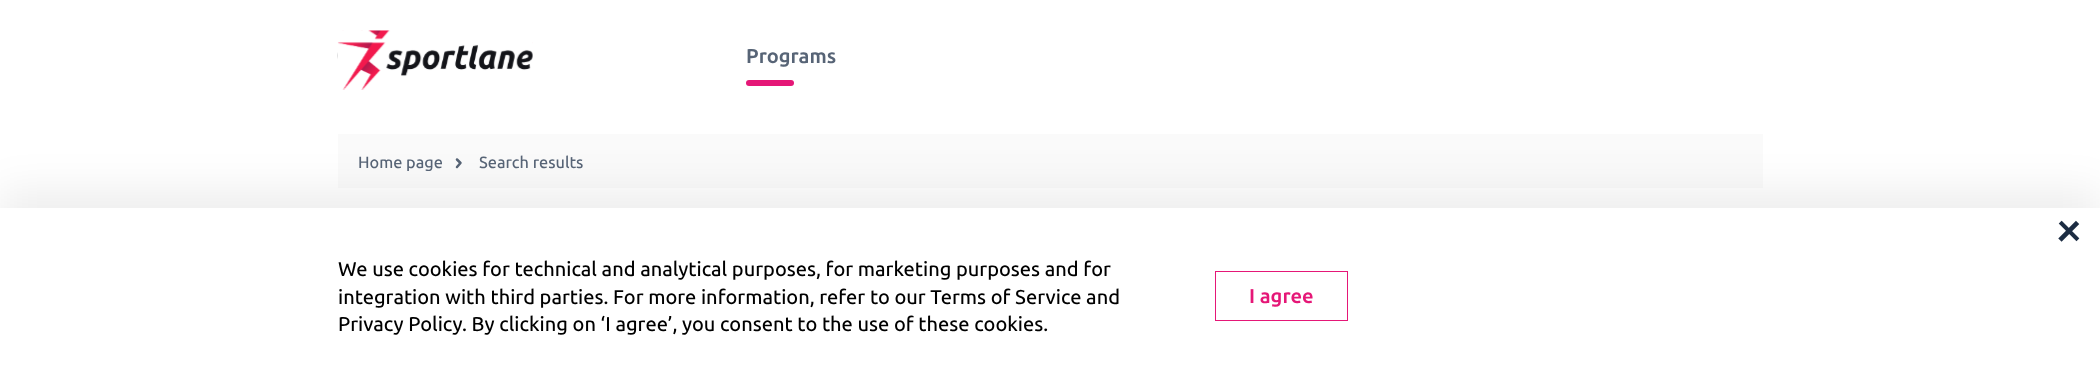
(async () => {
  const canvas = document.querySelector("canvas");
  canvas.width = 2100;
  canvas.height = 384;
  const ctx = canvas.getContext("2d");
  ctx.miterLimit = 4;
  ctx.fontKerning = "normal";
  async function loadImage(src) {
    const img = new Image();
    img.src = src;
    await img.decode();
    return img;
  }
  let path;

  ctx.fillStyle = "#ffffff";
  ctx.fillRect(0, 0, 2100, 384);
  ctx.drawImage(await loadImage("img/1.png"), 337, 30, 196, 60);
  ctx.fillStyle = "#e51777";
  ctx.beginPath();
  ctx.roundRect(746, 80, 48, 6, 3);
  ctx.fill();
  ctx.fillStyle = "#fafafa";
  ctx.fillRect(338, 134, 1425, 54);
  path = new Path2D("M457 167L460.5 163L457 159.5");
  ctx.strokeStyle = "#576476";
  ctx.lineWidth = 2.5;
  ctx.lineCap = "round";
  ctx.lineJoin = "round";
  ctx.stroke(path);
  ctx.fillStyle = "rgba(0, 0, 0, 0.07)";
  ctx.filter = "blur(20.5px)";
  ctx.beginPath();
  ctx.rect(0, 191, 2100, 178);
  ctx.fill();
  ctx.filter = "none";
  ctx.fillStyle = "#ffffff";
  ctx.fillRect(0, 208, 2100, 176);
  ctx.drawImage(await loadImage("img/2.png"), 2058, 220, 22, 22);
  ctx.strokeStyle = "#e51777";
  ctx.lineWidth = 1;
  ctx.lineJoin = "miter";
  ctx.strokeRect(1215.5, 271.5, 132, 49);
  ctx.font = "bold 20px Ubuntu";
  ctx.fillStyle = "#576476";
  ctx.fillText("Programs", 746, 63);
  ctx.font = "500 16.25px Ubuntu";
  ctx.fillText("Home page", 358, 168);
  ctx.fillText("Search results", 479, 168);
  ctx.font = "500 20px Ubuntu";
  ctx.fillStyle = "#000000";
  for (const [text, x, y] of [
    ["We use cookies for technical and analytical purposes, for marketing purposes and for", 338, 276],
    ["integration with third parties. For more information, refer to our Terms of Service and", 338, 304],
    ["Privacy Policy. By clicking on ‘I agree’, you consent to the use of these cookies.", 338, 331],
  ]) {
    ctx.fillText(text, x, y);
  }
  ctx.font = "bold 20px Ubuntu";
  ctx.fillStyle = "#e51777";
  ctx.fillText("I agree", 1249, 303);
})();
